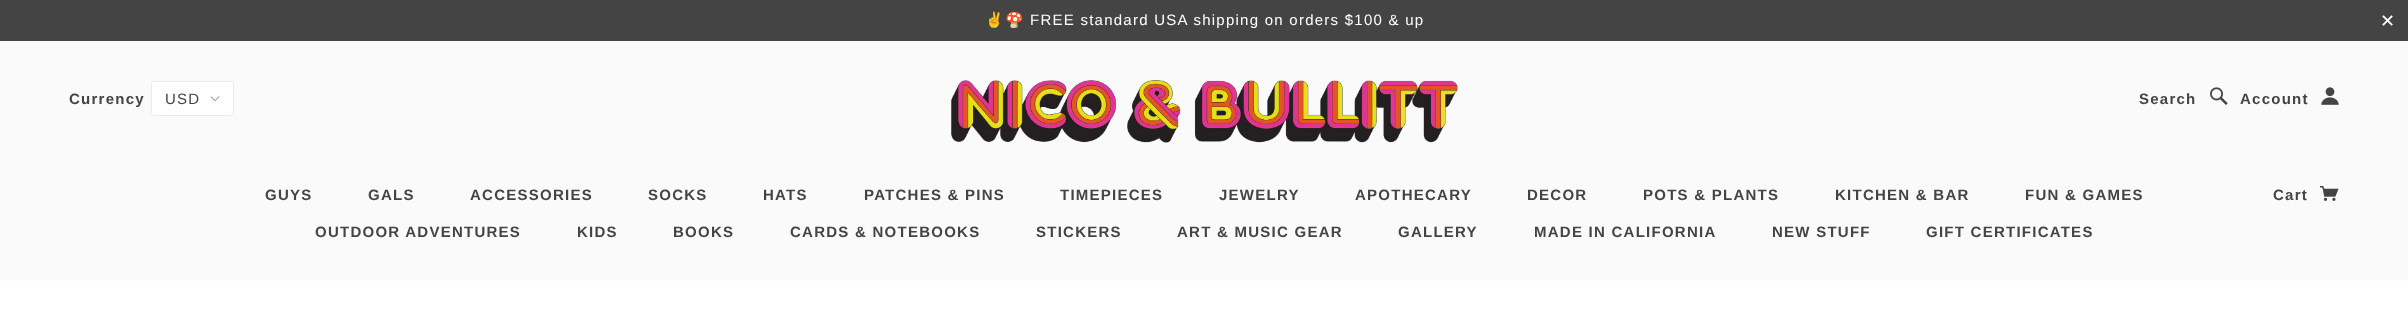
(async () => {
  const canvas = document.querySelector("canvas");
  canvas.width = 2408;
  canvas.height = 322;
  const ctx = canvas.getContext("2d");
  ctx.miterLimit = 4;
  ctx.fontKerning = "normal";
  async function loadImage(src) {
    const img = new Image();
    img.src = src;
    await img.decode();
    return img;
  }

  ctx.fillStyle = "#ffffff";
  ctx.fillRect(0, 0, 2408, 322);
  ctx.fillStyle = "#444444";
  ctx.fillRect(0, 0, 2408, 41);
  ctx.fillStyle = "#fafafa";
  ctx.fillRect(0, 41, 2408, 240);
  ctx.fillStyle = "#ffffff";
  ctx.beginPath();
  ctx.roundRect(151, 81, 83, 35, 2.5);
  ctx.fill();
  ctx.drawImage(await loadImage("img/1.png"), 210, 96, 10, 5);
  ctx.beginPath();
  ctx.roundRect(151.5, 81.5, 82, 34, 2);
  ctx.strokeStyle = "#ebebeb";
  ctx.stroke();
  ctx.drawImage(await loadImage("img/2.png"), 951, 80, 507, 63);
  ctx.drawImage(await loadImage("img/3.png"), 2210, 87, 18, 18);
  ctx.drawImage(await loadImage("img/4.png"), 2321, 87, 18, 18);
  ctx.drawImage(await loadImage("img/5.png"), 2320, 185, 19, 16);
  ctx.letterSpacing = "1.25px";
  ctx.font = "15px Noto Color Emoji";
  ctx.fillText("✌️🍄", 985, 25);
  ctx.font = "15px Liberation Sans";
  ctx.fillText("FREE standard USA shipping on orders $100 & up", 1030, 25);
  ctx.font = "18px DejaVu Sans";
  ctx.fillText("✕", 2380, 27);
  ctx.font = "bold 15px Liberation Sans";
  ctx.fillStyle = "#444444";
  ctx.fillText("Currency", 69, 104);
  ctx.font = "15px Liberation Sans";
  ctx.fillText("USD", 165, 104);
  ctx.font = "bold 15px Liberation Sans";
  for (const [text, x, y] of [
    ["Search", 2139, 104],
    ["Account", 2240, 104],
    ["GUYS", 265, 200],
    ["GALS", 368, 200],
    ["ACCESSORIES", 470, 200],
    ["SOCKS", 648, 200],
    ["HATS", 763, 200],
    ["PATCHES & PINS", 864, 200],
    ["TIMEPIECES", 1060, 200],
    ["JEWELRY", 1219, 200],
    ["APOTHECARY", 1355, 200],
    ["DECOR", 1527, 200],
    ["POTS & PLANTS", 1643, 200],
    ["KITCHEN & BAR", 1835, 200],
    ["FUN & GAMES", 2025, 200],
    ["OUTDOOR ADVENTURES", 315, 237],
    ["KIDS", 577, 237],
    ["BOOKS", 673, 237],
    ["CARDS & NOTEBOOKS", 790, 237],
    ["STICKERS", 1036, 237],
    ["ART & MUSIC GEAR", 1177, 237],
    ["GALLERY", 1398, 237],
    ["MADE IN CALIFORNIA", 1534, 237],
    ["NEW STUFF", 1772, 237],
    ["GIFT CERTIFICATES", 1926, 237],
    ["Cart", 2273, 200],
  ]) {
    ctx.fillText(text, x, y);
  }
})();
